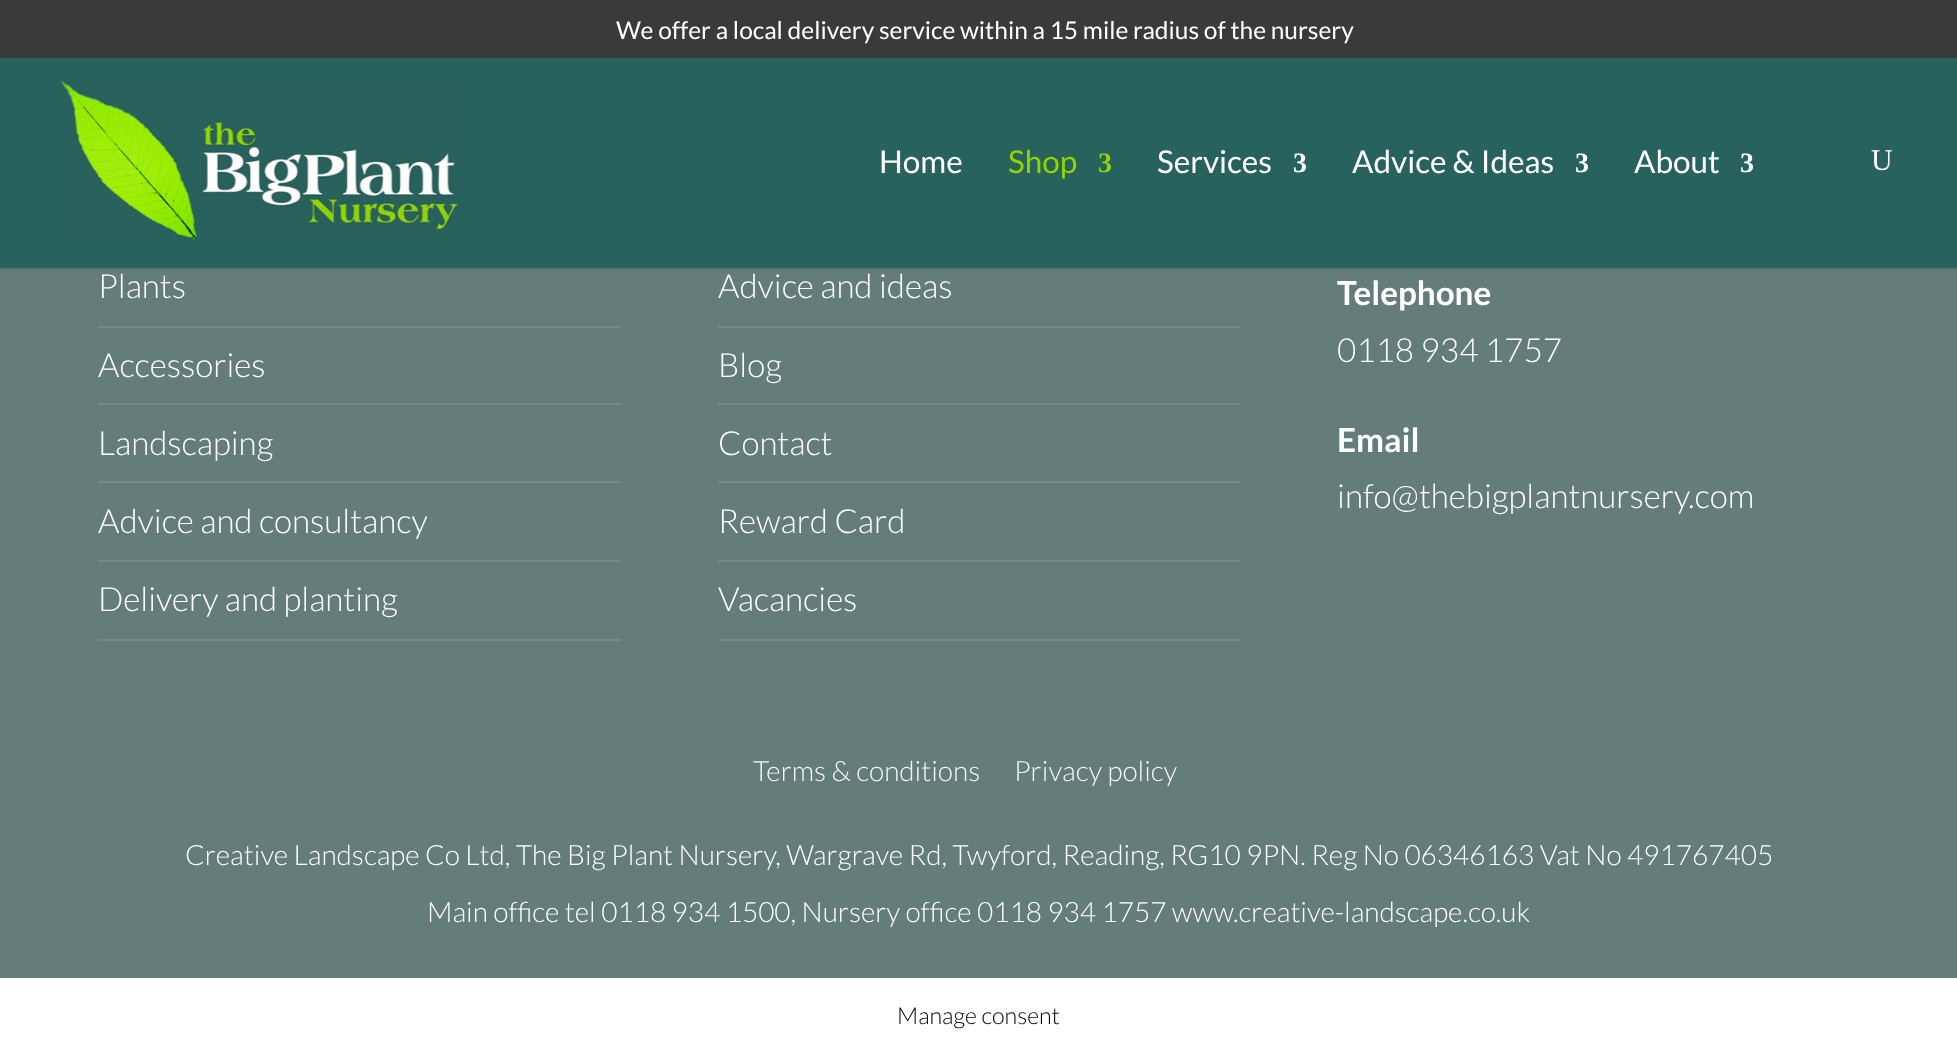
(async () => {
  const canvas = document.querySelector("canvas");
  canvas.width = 1957;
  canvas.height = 1052;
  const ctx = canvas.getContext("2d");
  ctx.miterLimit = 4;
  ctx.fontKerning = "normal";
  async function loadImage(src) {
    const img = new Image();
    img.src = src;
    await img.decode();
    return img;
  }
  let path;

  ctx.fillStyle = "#ffffff";
  ctx.fillRect(0, 0, 1957, 1052);
  for (const [x, y, w, h, color] of [
    [0, 268, 1957, 2, "#5a716e"],
    [0, 58, 1957, 210, "#28625c"],
    [0, 0, 1957, 58, "#3b3a3a"],
  ]) {
    ctx.fillStyle = color;
    ctx.fillRect(x, y, w, h);
  }
  ctx.drawImage(await loadImage("img/1.png"), 60, 80, 398, 160);
  ctx.save();
  path = new Path2D("M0 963H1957V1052H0ZM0 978H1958V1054H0Z");
  ctx.clip(path, "evenodd");
  ctx.fillStyle = "#161616";
  ctx.filter = "blur(4.5px)";
  ctx.beginPath();
  ctx.rect(0, 978, 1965, 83);
  ctx.fill();
  ctx.filter = "none";
  ctx.restore();
  for (const [x, y, w, h, color] of [
    [0, 270, 1957, 708, "#647d7a"],
    [98, 326, 523, 2, "#748a87"],
    [98, 403, 523, 2, "#748a87"],
    [98, 481, 523, 2, "#748a87"],
    [98, 560, 523, 2, "#748a87"],
    [98, 639, 523, 2, "#748a87"],
    [718, 326, 523, 2, "#748a87"],
    [718, 403, 523, 2, "#748a87"],
    [718, 481, 523, 2, "#748a87"],
    [718, 560, 523, 2, "#748a87"],
    [718, 639, 523, 2, "#748a87"],
  ]) {
    ctx.fillStyle = color;
    ctx.fillRect(x, y, w, h);
  }
  ctx.font = "24.5px Lato";
  ctx.fillStyle = "#ffffff";
  ctx.fillText("We offer a local delivery service within a 15 mile radius of the nursery", 616, 39);
  ctx.font = "31.5px Lato";
  ctx.fillText("Home", 879, 173);
  ctx.fillStyle = "#93d300";
  ctx.fillText("Shop", 1008, 173);
  ctx.font = "bold 28px Liberation Serif";
  ctx.fillText("3", 1098, 172);
  ctx.font = "31.5px Lato";
  ctx.fillStyle = "#ffffff";
  ctx.fillText("Services", 1157, 173);
  ctx.font = "bold 28px Liberation Serif";
  ctx.fillText("3", 1293, 172);
  ctx.font = "31.5px Lato";
  ctx.fillText("Advice & Ideas", 1352, 173);
  ctx.font = "bold 28px Liberation Serif";
  ctx.fillText("3", 1575, 172);
  ctx.font = "31.5px Lato";
  ctx.fillText("About", 1634, 173);
  ctx.font = "bold 28px Liberation Serif";
  ctx.fillText("3", 1740, 172);
  ctx.font = "30px Liberation Serif";
  ctx.fillText("U", 1871, 170);
  ctx.font = "300 33.25px Lato";
  for (const [text, x, y] of [
    ["Plants", 98, 298],
    ["Accessories", 98, 377],
    ["Landscaping", 98, 455],
    ["Advice and consultancy", 98, 533],
    ["Delivery and planting", 98, 611],
    ["Advice and ideas", 718, 298],
    ["Blog", 718, 377],
    ["Contact", 718, 455],
    ["Reward Card", 718, 533],
    ["Vacancies", 718, 611],
  ]) {
    ctx.fillText(text, x, y);
  }
  ctx.font = "bold 33.25px Lato";
  ctx.fillText("Telephone", 1337, 305);
  ctx.font = "300 33.25px Lato";
  ctx.fillText("0118 934 1757", 1337, 362);
  ctx.font = "bold 33.25px Lato";
  ctx.fillText("Email", 1337, 452);
  ctx.font = "300 33.25px Lato";
  ctx.fillText("info@thebigplantnursery.com", 1337, 508);
  ctx.font = "300 28px Lato";
  ctx.fillStyle = "#f6f7f2";
  ctx.fillText("Terms & conditions", 753, 781);
  ctx.fillText("Privacy policy", 1014, 781);
  ctx.fillStyle = "#ffffff";
  ctx.fillText("Creative Landscape Co Ltd, The Big Plant Nursery, Wargrave Rd, Twyford, Reading, RG10 9PN. Reg No 06346163 Vat No 491767405", 185, 865);
  ctx.fillText("Main office tel 0118 934 1500, Nursery office 0118 934 1757 www.creative-landscape.co.uk", 427, 922);
  ctx.font = "300 23.25px Lato";
  ctx.fillStyle = "#000000";
  ctx.fillText("Manage consent", 897, 1024);
})();
